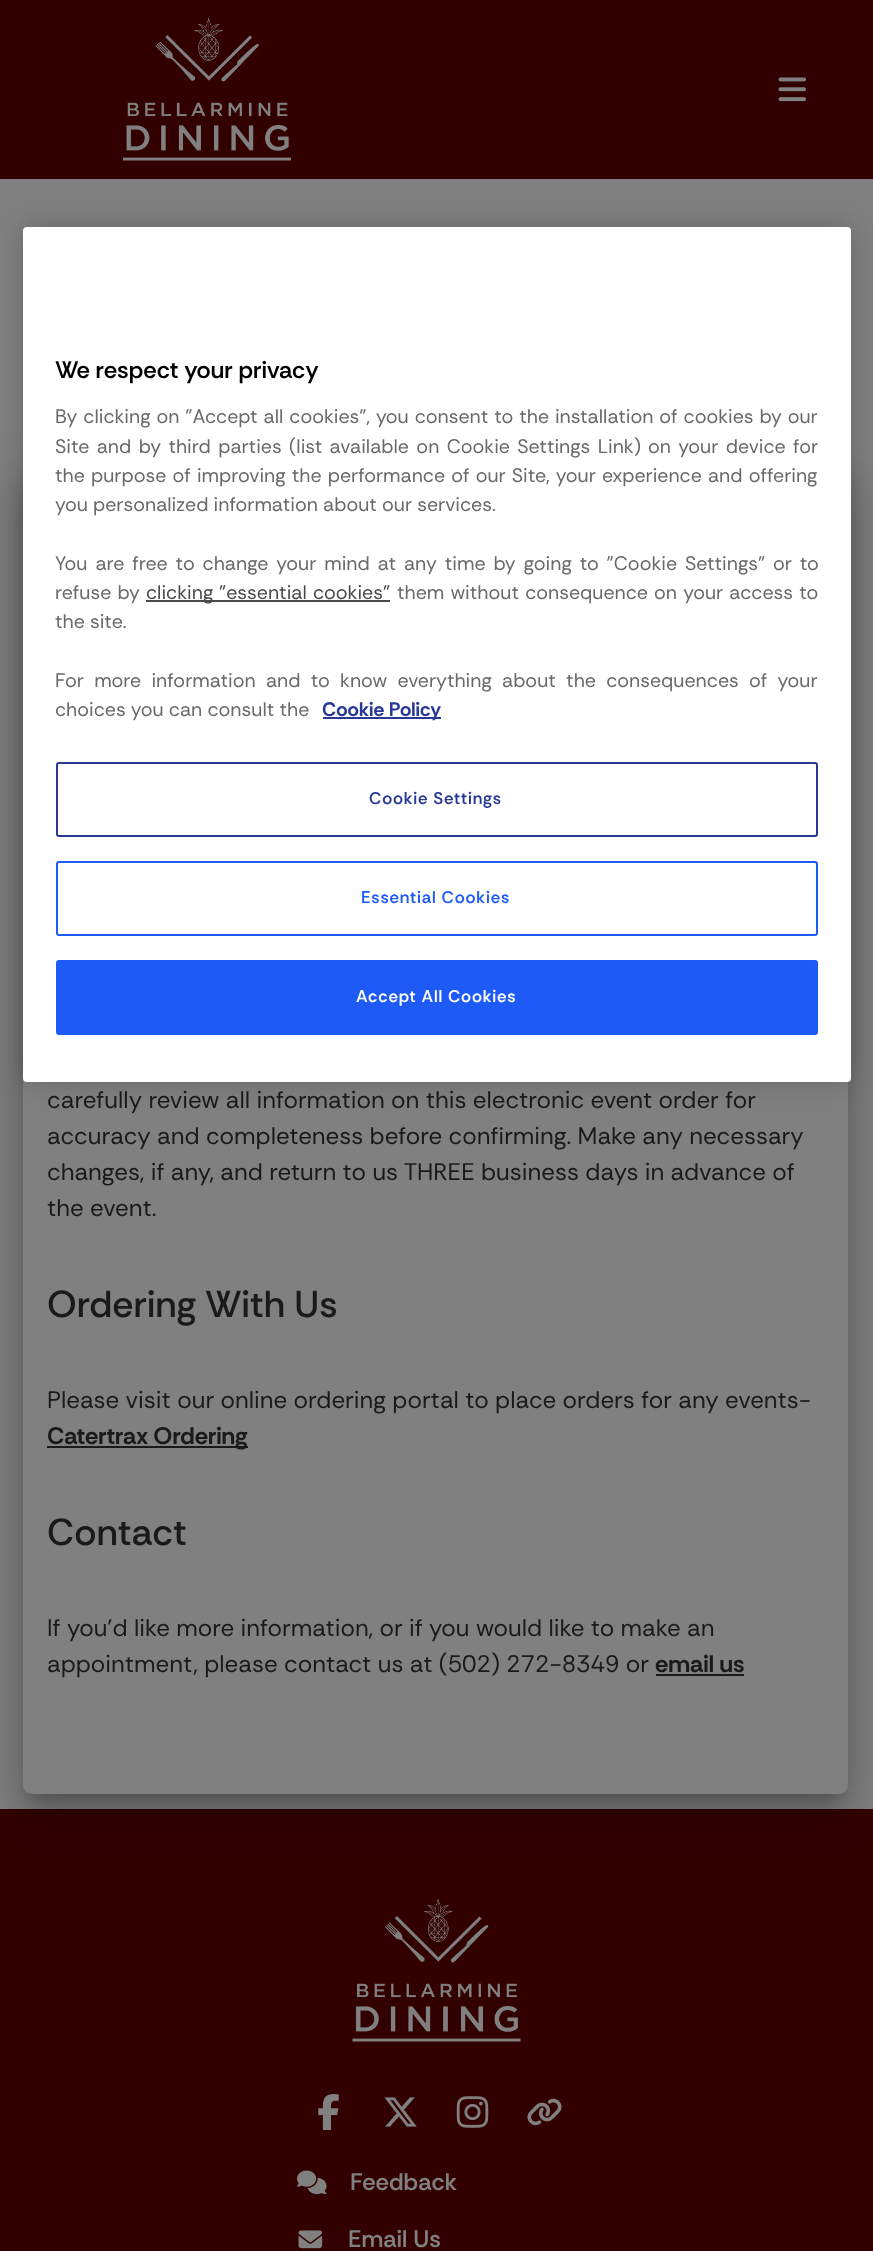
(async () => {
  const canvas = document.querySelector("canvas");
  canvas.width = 873;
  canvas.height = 2251;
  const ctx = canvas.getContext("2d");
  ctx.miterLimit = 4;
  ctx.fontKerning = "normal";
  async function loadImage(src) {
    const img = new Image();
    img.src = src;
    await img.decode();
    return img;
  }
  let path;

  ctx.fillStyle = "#808080";
  ctx.fillRect(0, 0, 873, 2251);
  ctx.fillStyle = "rgba(0, 0, 0, 0.2)";
  ctx.filter = "blur(13.5px)";
  ctx.beginPath();
  ctx.roundRect(23, 227, 828, 855, 4);
  ctx.fill();
  ctx.filter = "none";
  ctx.fillStyle = "#330000";
  ctx.fillRect(0, 1809, 873, 442);
  ctx.save();
  path = new Path2D("M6 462H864V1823H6ZM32 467H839C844 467 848 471 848 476V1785C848 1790 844 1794 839 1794H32C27 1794 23 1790 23 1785V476C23 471 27 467 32 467Z");
  ctx.clip(path, "evenodd");
  ctx.fillStyle = "rgba(0, 0, 0, 0.2)";
  ctx.filter = "blur(7.5px)";
  ctx.beginPath();
  ctx.roundRect(30, 486, 810, 1313, 1.5);
  ctx.fill();
  ctx.filter = "none";
  ctx.restore();
  ctx.save();
  path = new Path2D("M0 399H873V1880H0ZM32 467H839C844 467 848 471 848 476V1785C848 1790 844 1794 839 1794H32C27 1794 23 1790 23 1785V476C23 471 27 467 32 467Z");
  ctx.clip(path, "evenodd");
  ctx.fillStyle = "rgba(0, 0, 0, 0.12)";
  ctx.filter = "blur(22.5px)";
  ctx.beginPath();
  ctx.roundRect(15, 468, 840, 1343, 17);
  ctx.fill();
  ctx.filter = "none";
  ctx.restore();
  ctx.save();
  path = new Path2D("M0 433H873V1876H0ZM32 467H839C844 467 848 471 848 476V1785C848 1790 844 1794 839 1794H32C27 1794 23 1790 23 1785V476C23 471 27 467 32 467Z");
  ctx.clip(path, "evenodd");
  ctx.fillStyle = "rgba(0, 0, 0, 0.14)";
  ctx.filter = "blur(18px)";
  ctx.beginPath();
  ctx.roundRect(20, 488, 831, 1333, 12);
  ctx.fill();
  ctx.filter = "none";
  ctx.restore();
  ctx.fillStyle = "#ffffff";
  ctx.beginPath();
  ctx.roundRect(23, 227, 828, 855, 4);
  ctx.fill();
  ctx.fillStyle = "#4a4a4a";
  ctx.fillRect(146, 600, 244, 2);
  ctx.fillStyle = "#283897";
  ctx.fillRect(323, 717, 118, 2);
  ctx.beginPath();
  ctx.roundRect(57, 763, 760, 73, 2);
  ctx.strokeStyle = "#283897";
  ctx.lineWidth = 2;
  ctx.stroke();
  ctx.beginPath();
  ctx.roundRect(57, 862, 760, 73, 2);
  ctx.strokeStyle = "#1e5bf6";
  ctx.stroke();
  ctx.fillStyle = "#1e5bf6";
  ctx.beginPath();
  ctx.roundRect(57, 961, 760, 73, 2);
  ctx.fill();
  ctx.stroke();
  ctx.fillStyle = "#330000";
  ctx.fillRect(0, 0, 873, 179);
  ctx.drawImage(await loadImage("img/1.png"), 123, 18, 168, 143);
  ctx.drawImage(await loadImage("img/2.png"), 778, 77, 28, 25);
  ctx.fillStyle = "#1a1a1a";
  ctx.fillRect(47, 1446, 201, 2);
  ctx.fillRect(656, 1674, 88, 2);
  ctx.drawImage(await loadImage("img/3.png"), 352, 1899, 169, 143);
  ctx.drawImage(await loadImage("img/4.png"), 318, 2094, 21, 36);
  ctx.drawImage(await loadImage("img/5.png"), 384, 2097, 33, 30);
  ctx.drawImage(await loadImage("img/6.png"), 456, 2096, 33, 32);
  ctx.drawImage(await loadImage("img/7.png"), 527, 2098, 35, 28);
  ctx.drawImage(await loadImage("img/8.png"), 297, 2170, 30, 25);
  ctx.drawImage(await loadImage("img/9.png"), 298, 2230, 25, 19);
  ctx.font = "600 24px Rethink Sans";
  ctx.fillStyle = "#000000";
  ctx.fillText("We respect your privacy", 55, 378);
  ctx.wordSpacing = "0.75px";
  ctx.font = "19.5px Rethink Sans";
  ctx.fillStyle = "#696969";
  ctx.fillText("By clicking on \"Accept all cookies\", you consent to the installation of cookies by our", 55, 423);
  ctx.wordSpacing = "2.25px";
  ctx.fillText("Site and by third parties (list available on Cookie Settings Link)", 55, 453);
  ctx.fillText("on your device for", 648, 453);
  ctx.wordSpacing = "1px";
  ctx.fillText("the purpose of improving the performance of our Site, your experience and offering", 55, 482);
  ctx.wordSpacing = "0px";
  ctx.fillText("you personalized information about our services.", 55, 511);
  ctx.wordSpacing = "2.75px";
  ctx.fillText("You are free to change your mind at any time by going to \"Cookie Settings\" or to", 55, 570);
  ctx.wordSpacing = "1px";
  ctx.fillText("refuse by", 55, 599);
  ctx.wordSpacing = "0px";
  ctx.fillStyle = "#4a4a4a";
  ctx.fillText("clicking", 146, 599);
  ctx.wordSpacing = "1px";
  ctx.fillText("\"essential cookies\"", 219, 599);
  ctx.fillStyle = "#696969";
  ctx.fillText("them without consequence on your access to", 397, 599);
  ctx.wordSpacing = "0px";
  ctx.fillText("the site.", 55, 628);
  ctx.wordSpacing = "5.1px";
  ctx.fillText("For more information and to know everything about the consequences of your", 55, 687);
  ctx.wordSpacing = "0px";
  ctx.fillText("choices you can consult the", 55, 716);
  ctx.font = "bold 19.5px Rethink Sans";
  ctx.fillStyle = "#283897";
  ctx.fillText("Cookie Policy", 322, 716);
  ctx.letterSpacing = "0.8px";
  ctx.font = "600 17px Rethink Sans";
  ctx.fillText("Cookie Settings", 369, 804);
  ctx.fillStyle = "#1e5bf6";
  ctx.fillText("Essential Cookies", 361, 903);
  ctx.fillStyle = "#ffffff";
  ctx.fillText("Accept All Cookies", 356, 1002);
  ctx.letterSpacing = "0px";
  ctx.font = "24px Rethink Sans";
  ctx.fillStyle = "#1a1a1a";
  for (const [text, x, y] of [
    ["carefully review all information on this electronic event order for", 47, 1108],
    ["accuracy and completeness before confirming. Make any necessary", 47, 1144],
    ["changes, if any, and return to us THREE business days in advance of", 47, 1180],
    ["the event.", 47, 1216],
  ]) {
    ctx.fillText(text, x, y);
  }
  ctx.font = "500 37.5px Rethink Sans";
  ctx.fillText("Ordering With Us", 47, 1317);
  ctx.font = "24px Rethink Sans";
  ctx.fillText("Please visit our online ordering portal to place orders for any events-", 47, 1408);
  ctx.font = "bold 24px Rethink Sans";
  ctx.fillText("Catertrax Ordering", 47, 1444);
  ctx.font = "500 37.5px Rethink Sans";
  ctx.fillText("Contact", 47, 1545);
  ctx.font = "24px Rethink Sans";
  ctx.fillText("If you'd like more information, or if you would like to make an", 47, 1636);
  ctx.fillText("appointment, please contact us at (502) 272-8349 or", 47, 1672);
  ctx.font = "bold 24px Rethink Sans";
  ctx.fillText("email us", 655, 1672);
  ctx.font = "600 24px Rethink Sans";
  ctx.fillStyle = "#808080";
  ctx.fillText("Feedback", 350, 2190);
  ctx.fillText("Email Us", 348, 2247);
})();
